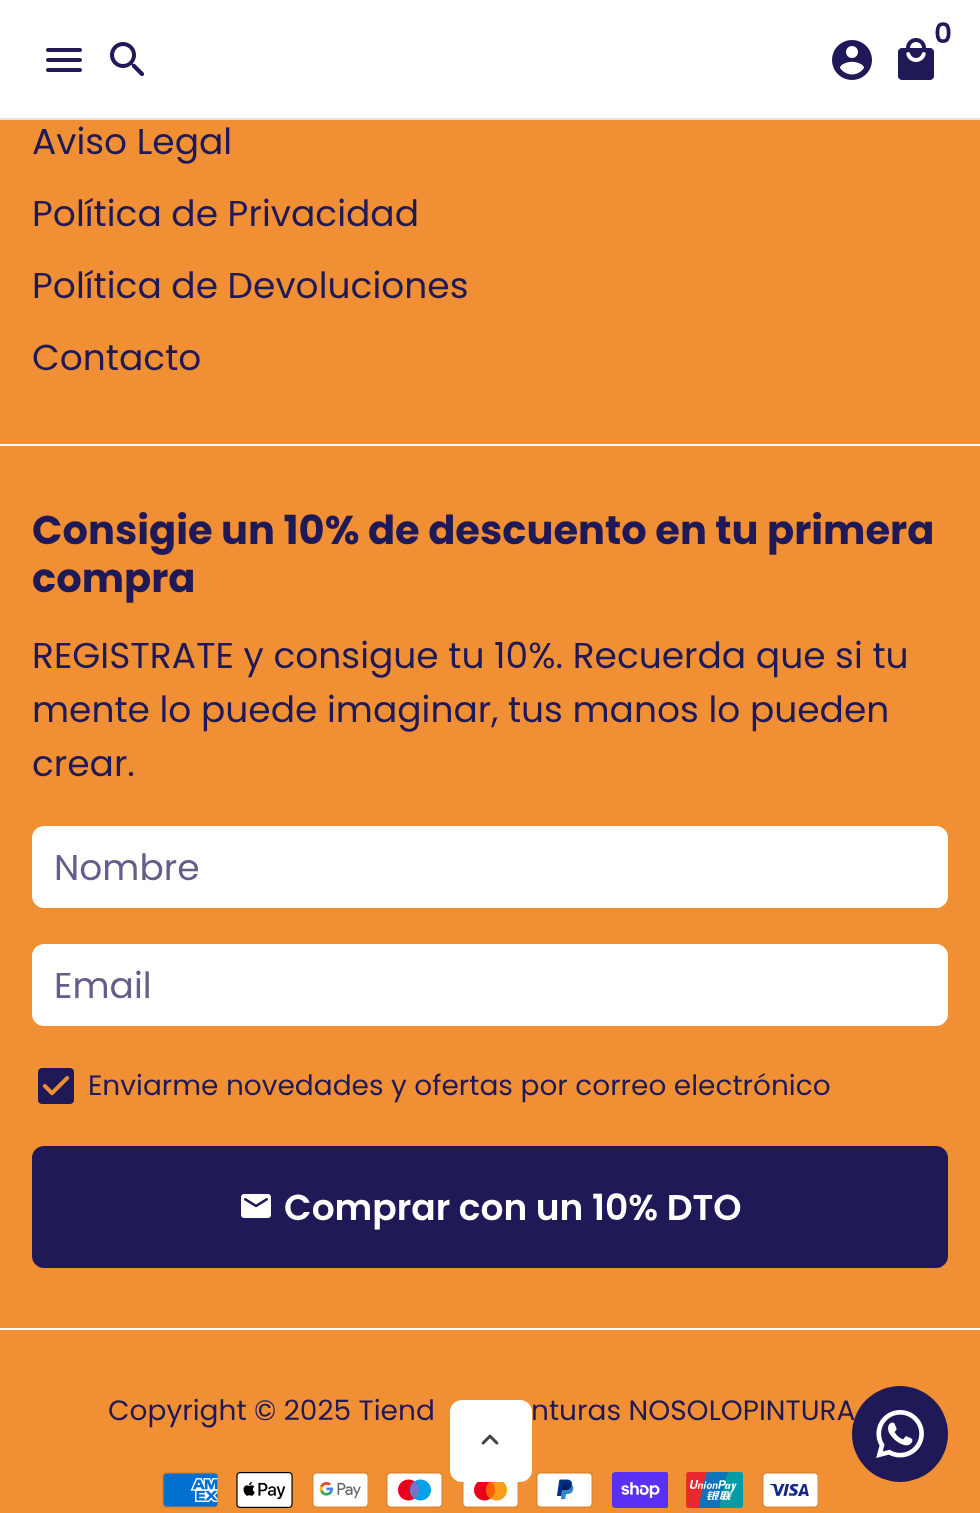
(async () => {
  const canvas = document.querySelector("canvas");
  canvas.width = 980;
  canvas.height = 1513;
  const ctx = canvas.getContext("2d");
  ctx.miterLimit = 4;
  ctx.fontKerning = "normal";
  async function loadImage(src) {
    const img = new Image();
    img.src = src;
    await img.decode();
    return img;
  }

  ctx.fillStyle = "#f08f34";
  ctx.fillRect(0, 0, 980, 1513);
  ctx.fillStyle = "#ffffff";
  ctx.fillRect(0, 0, 980, 118);
  ctx.fillStyle = "#e5e5e5";
  ctx.fillRect(0, 118, 980, 2);
  ctx.drawImage(await loadImage("img/1.png"), 898, 38, 36, 42);
  ctx.drawImage(await loadImage("img/2.png"), 832, 40, 40, 40);
  ctx.drawImage(await loadImage("img/3.png"), 46, 48, 36, 24);
  ctx.drawImage(await loadImage("img/4.png"), 110, 42, 35, 35);
  ctx.fillStyle = "#ffffff";
  ctx.fillRect(0, 444, 980, 2);
  ctx.beginPath();
  ctx.roundRect(33, 827, 914, 80, 11);
  ctx.fill();
  ctx.strokeStyle = "#ffffff";
  ctx.lineWidth = 2;
  ctx.stroke();
  ctx.beginPath();
  ctx.roundRect(33, 945, 914, 80, 11);
  ctx.fill();
  ctx.stroke();
  ctx.drawImage(await loadImage("img/5.png"), 38, 1068, 36, 36);
  ctx.fillStyle = "#201958";
  ctx.beginPath();
  ctx.roundRect(33, 1147, 914, 120, 11);
  ctx.fill();
  ctx.strokeStyle = "#201958";
  ctx.stroke();
  ctx.drawImage(await loadImage("img/6.png"), 241, 1194, 30, 24);
  ctx.fillStyle = "#ffffff";
  ctx.fillRect(0, 1328, 980, 2);
  ctx.drawImage(await loadImage("img/7.png"), 162, 1472, 56, 36);
  ctx.drawImage(await loadImage("img/8.png"), 236, 1472, 57, 36);
  ctx.drawImage(await loadImage("img/9.png"), 312, 1472, 56, 36);
  ctx.drawImage(await loadImage("img/10.png"), 386, 1472, 57, 36);
  ctx.drawImage(await loadImage("img/11.png"), 462, 1482, 56, 26);
  ctx.drawImage(await loadImage("img/12.png"), 536, 1472, 57, 36);
  ctx.drawImage(await loadImage("img/13.png"), 612, 1472, 56, 36);
  ctx.drawImage(await loadImage("img/14.png"), 686, 1472, 57, 36);
  ctx.drawImage(await loadImage("img/15.png"), 762, 1472, 56, 36);
  ctx.beginPath();
  ctx.roundRect(451, 1401, 80, 80, 11);
  ctx.fill();
  ctx.strokeStyle = "#ffffff";
  ctx.stroke();
  ctx.drawImage(await loadImage("img/16.png"), 481, 1434, 18, 11);
  ctx.fillStyle = "#201958";
  ctx.beginPath();
  ctx.arc(900, 1434, 48, 0, Math.PI * 2);
  ctx.fill();
  ctx.drawImage(await loadImage("img/17.png"), 876, 1410, 48, 48);
  ctx.font = "600 28px Poppins";
  ctx.fillText("0", 934, 43);
  ctx.font = "36px Poppins";
  for (const [text, x, y] of [
    ["Aviso Legal", 32, 154],
    ["Política de Privacidad", 32, 226],
    ["Política de Devoluciones", 32, 298],
    ["Contacto", 32, 370],
  ]) {
    ctx.fillText(text, x, y);
  }
  ctx.font = "bold 40px Poppins";
  ctx.fillText("Consigie un 10% de descuento en tu primera", 32, 544);
  ctx.fillText("compra", 32, 592);
  ctx.font = "36px Poppins";
  for (const [text, x, y] of [
    ["REGISTRATE y consigue tu 10%. Recuerda que si tu", 32, 668],
    ["mente lo puede imaginar, tus manos lo pueden", 32, 722],
    ["crear.", 32, 776],
  ]) {
    ctx.fillText(text, x, y);
  }
  ctx.fillStyle = "#635e8a";
  ctx.fillText("Nombre", 54, 880);
  ctx.fillText("Email", 54, 998);
  ctx.font = "28px Poppins";
  ctx.fillStyle = "#201958";
  ctx.fillText("Enviarme novedades y ofertas por correo electrónico", 88, 1095);
  ctx.font = "600 36px Poppins";
  ctx.fillStyle = "#ffffff";
  ctx.fillText("Comprar con un 10% DTO", 284, 1220);
  ctx.font = "28px Poppins";
  ctx.fillStyle = "#201958";
  ctx.fillText("Copyright © 2025 Tiend", 108, 1420);
  ctx.fillText("nturas NOSOLOPINTURA", 531, 1420);
})();
